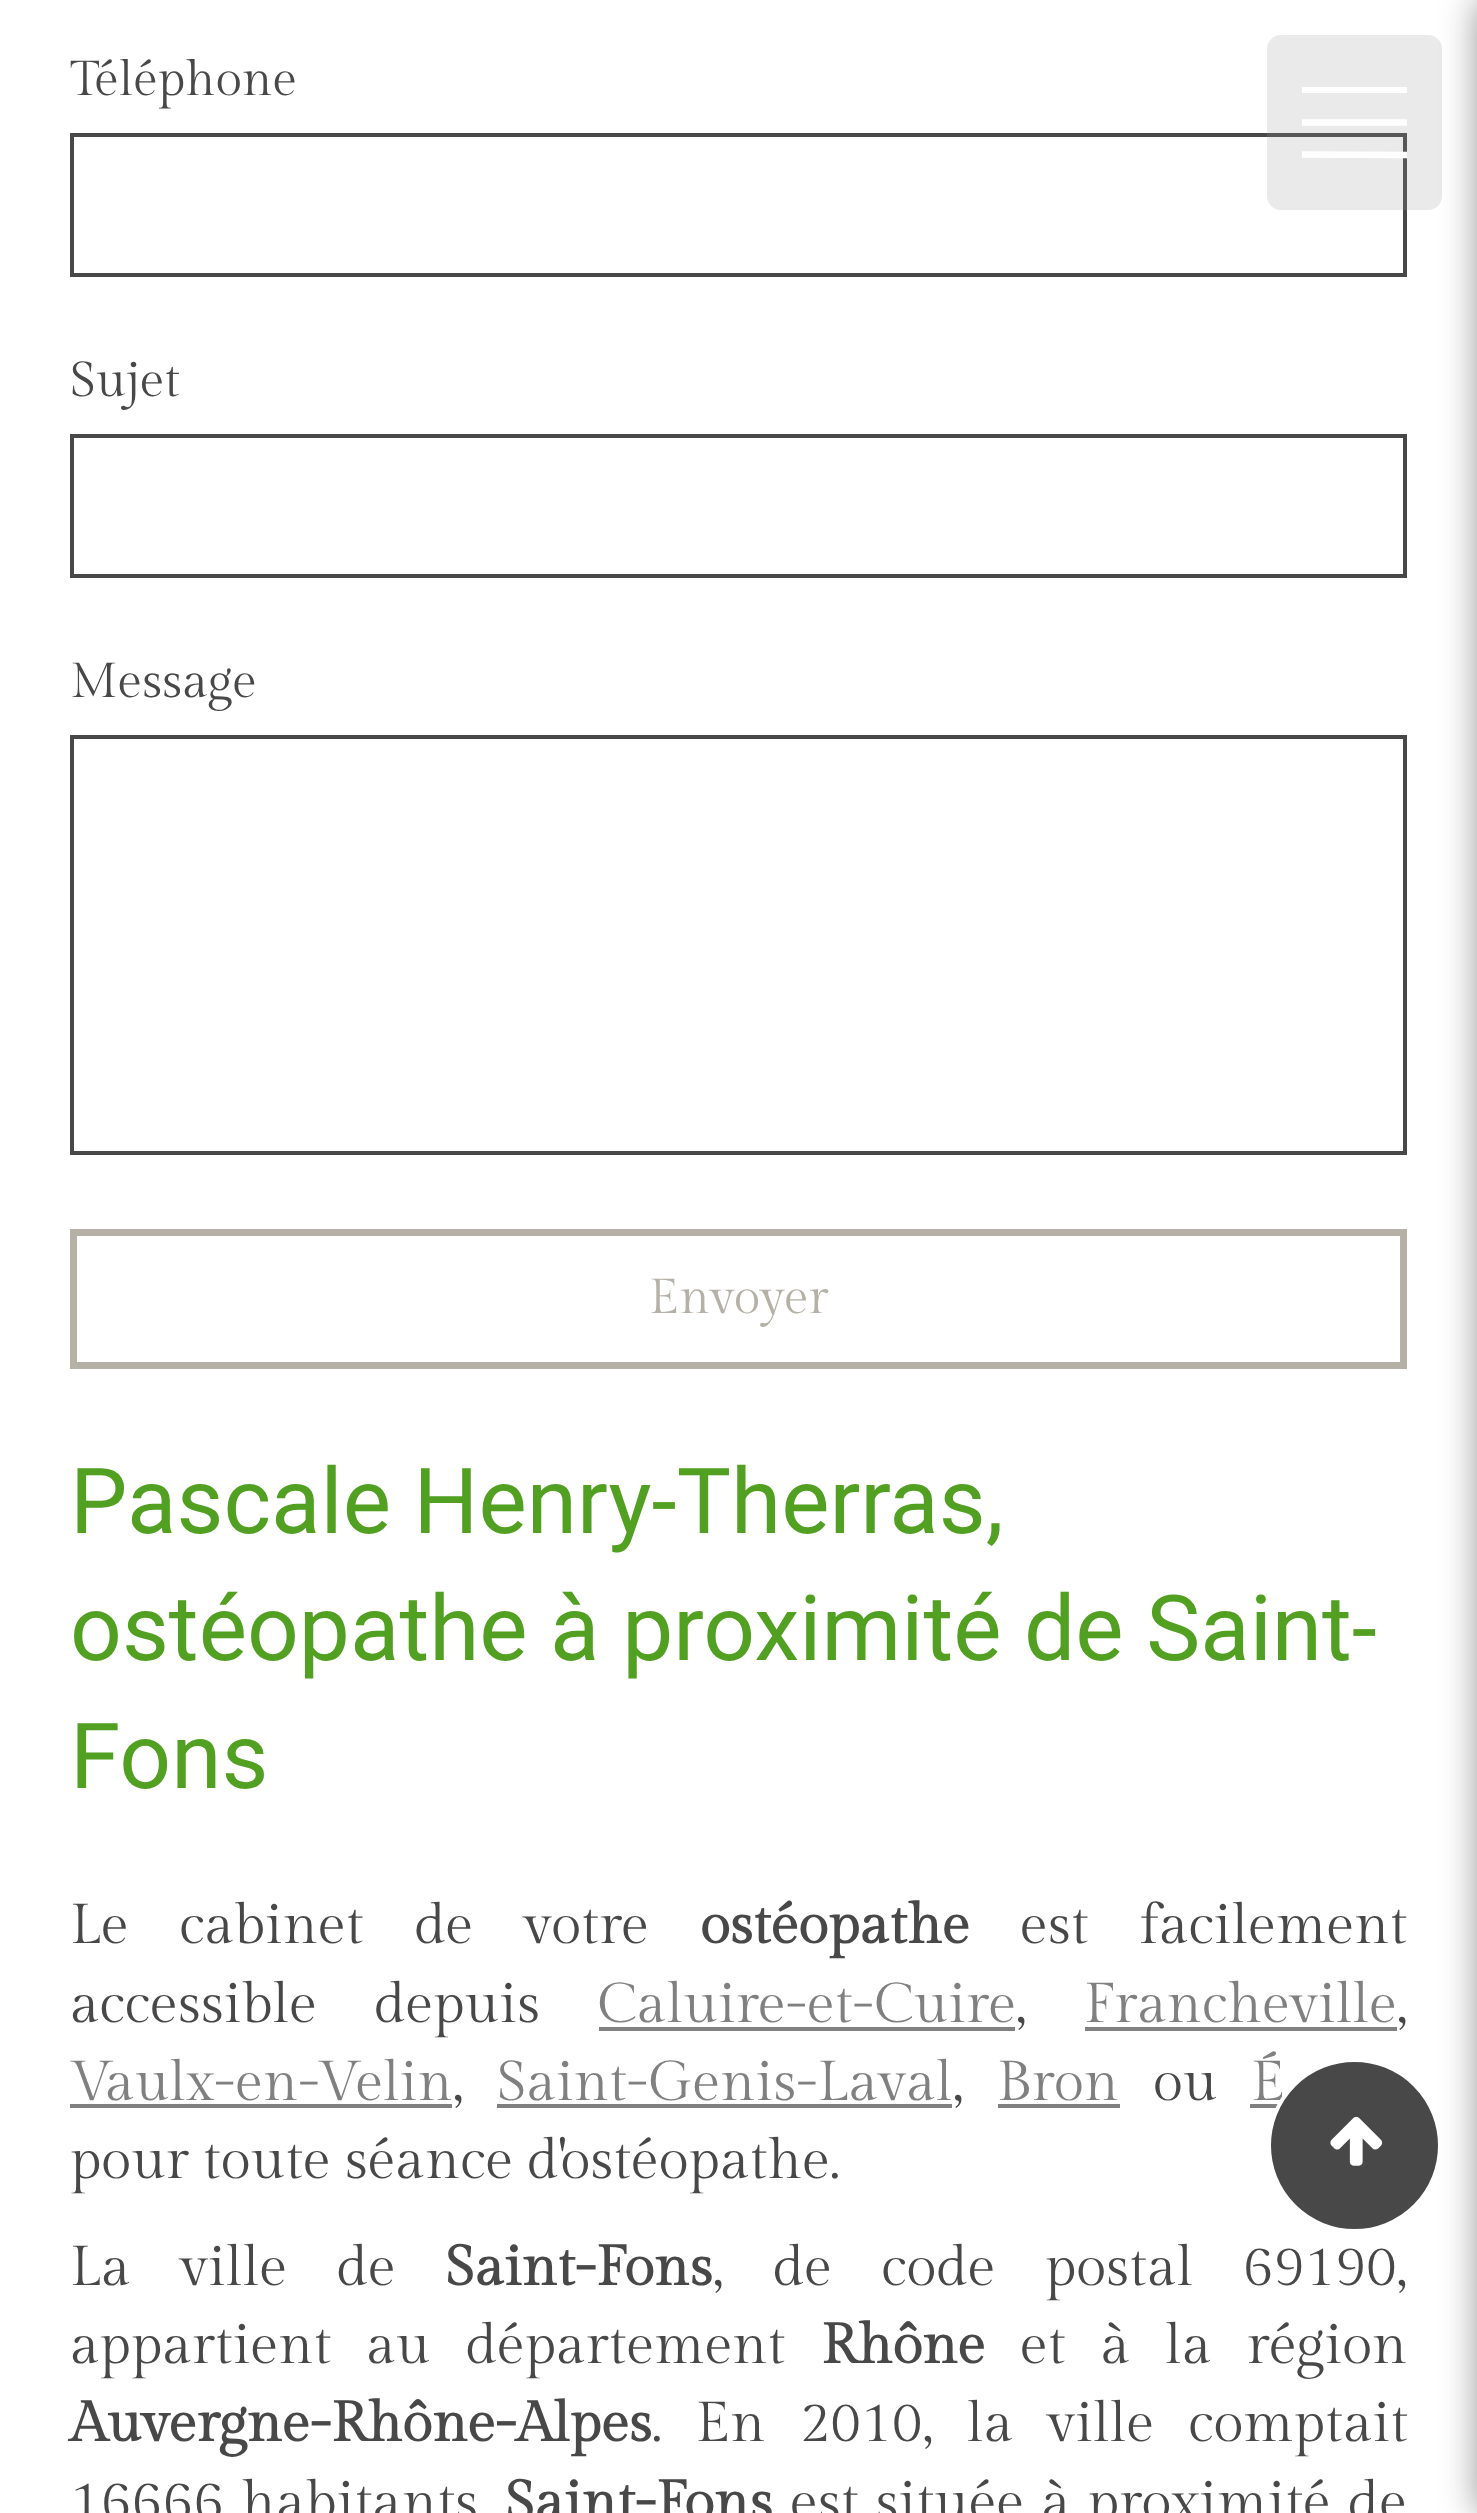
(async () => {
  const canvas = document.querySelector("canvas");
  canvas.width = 1477;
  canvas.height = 2513;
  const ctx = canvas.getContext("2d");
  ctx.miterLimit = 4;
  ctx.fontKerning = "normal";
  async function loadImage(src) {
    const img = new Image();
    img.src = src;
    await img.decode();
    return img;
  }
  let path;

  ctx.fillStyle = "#ffffff";
  ctx.fillRect(0, 0, 1477, 2513);
  ctx.strokeStyle = "#484848";
  ctx.lineWidth = 4;
  ctx.strokeRect(72, 135, 1333, 140);
  ctx.fillStyle = "rgba(150, 150, 150, 0.2)";
  ctx.beginPath();
  ctx.roundRect(1267, 35, 175, 175, 14);
  ctx.fill();
  ctx.fillStyle = "#ffffff";
  ctx.fillRect(1302, 87, 105, 6);
  path = new Path2D("M1302 122.5H1407");
  ctx.strokeStyle = "#ffffff";
  ctx.lineWidth = 6.3;
  ctx.stroke(path);
  path = new Path2D("M1302 154.5L1407 155");
  ctx.stroke(path);
  ctx.strokeStyle = "#484848";
  ctx.lineWidth = 4;
  ctx.strokeRect(72, 436, 1333, 140);
  ctx.strokeRect(72, 737, 1333, 416);
  ctx.strokeStyle = "#b5b1a6";
  ctx.lineWidth = 7;
  ctx.strokeRect(73.5, 1232.5, 1330, 133);
  for (const [x, y, w, h, color] of [
    [599, 2027, 416, 4, "#808080"],
    [1085, 2027, 312, 4, "#808080"],
    [70, 2104, 382, 4, "#808080"],
    [497, 2104, 455, 4, "#808080"],
    [998, 2104, 122, 4, "#808080"],
    [1250, 2104, 28, 4, "#808080"],
  ]) {
    ctx.fillStyle = color;
    ctx.fillRect(x, y, w, h);
  }
  ctx.font = "49px Gilda Display";
  ctx.fillStyle = "#484848";
  for (const [text, x, y] of [
    ["Téléphone", 70, 95],
    ["Sujet", 70, 396],
    ["Message", 70, 697],
  ]) {
    ctx.fillText(text, x, y);
  }
  ctx.fillStyle = "#b5b1a6";
  ctx.fillText("Envoyer", 649, 1313);
  ctx.font = "91px Roboto";
  ctx.fillStyle = "#52a022";
  for (const [text, x, y] of [
    ["Pascale Henry-Therras,", 70, 1533],
    ["ostéopathe à proximité de Saint-", 70, 1660],
    ["Fons", 70, 1788],
  ]) {
    ctx.fillText(text, x, y);
  }
  ctx.wordSpacing = "36.5px";
  ctx.font = "56px Gilda Display";
  ctx.fillStyle = "#484848";
  ctx.fillText("Le cabinet de votre", 70, 1943);
  ctx.wordSpacing = "0px";
  ctx.font = "bold 56px Gilda Display";
  ctx.fillText("ostéopathe", 700, 1943);
  ctx.wordSpacing = "36.5px";
  ctx.font = "56px Gilda Display";
  ctx.fillText("est facilement", 1020, 1943);
  ctx.wordSpacing = "43px";
  ctx.fillText("accessible depuis", 70, 2022);
  ctx.wordSpacing = "0px";
  ctx.fillStyle = "#808080";
  ctx.fillText("Caluire-et-Cuire", 597, 2022);
  ctx.fillStyle = "#484848";
  ctx.fillText(",", 1016, 2022);
  ctx.fillStyle = "#808080";
  ctx.fillText("Francheville", 1084, 2022);
  ctx.fillStyle = "#484848";
  ctx.fillText(",", 1397, 2022);
  ctx.fillStyle = "#808080";
  ctx.fillText("Vaulx-en-Velin", 70, 2100);
  ctx.fillStyle = "#484848";
  ctx.fillText(",", 453, 2100);
  ctx.fillStyle = "#808080";
  ctx.fillText("Saint-Genis-Laval", 497, 2100);
  ctx.fillStyle = "#484848";
  ctx.fillText(",", 953, 2100);
  ctx.fillStyle = "#808080";
  ctx.fillText("Bron", 997, 2100);
  ctx.fillStyle = "#484848";
  ctx.fillText("ou", 1153, 2100);
  ctx.fillStyle = "#808080";
  ctx.fillText("É", 1251, 2100);
  ctx.fillStyle = "#484848";
  ctx.fillText("pour toute séance d'ostéopathe.", 70, 2178);
  ctx.wordSpacing = "35.5px";
  ctx.fillText("La ville de", 70, 2285);
  ctx.wordSpacing = "0px";
  ctx.font = "bold 56px Gilda Display";
  ctx.fillText("Saint-Fons", 445, 2285);
  ctx.wordSpacing = "35.5px";
  ctx.font = "56px Gilda Display";
  ctx.fillText(", de code postal 69190,", 713, 2285);
  ctx.wordSpacing = "21px";
  ctx.fillText("appartient au département", 70, 2363);
  ctx.wordSpacing = "0px";
  ctx.font = "bold 56px Gilda Display";
  ctx.fillText("Rhône", 821, 2363);
  ctx.wordSpacing = "21px";
  ctx.font = "56px Gilda Display";
  ctx.fillText("et à la région", 1020, 2363);
  ctx.wordSpacing = "0px";
  ctx.font = "bold 56px Gilda Display";
  ctx.fillText("Auvergne-Rhône-Alpes", 70, 2441);
  ctx.wordSpacing = "20px";
  ctx.font = "56px Gilda Display";
  ctx.fillText(". En 2010, la ville comptait", 652, 2441);
  ctx.wordSpacing = "3px";
  ctx.fillText("16666 habitants", 70, 2520);
  ctx.wordSpacing = "0px";
  ctx.font = "bold 56px Gilda Display";
  ctx.fillText("Saint-Fons", 505, 2520);
  ctx.wordSpacing = "3px";
  ctx.font = "56px Gilda Display";
  ctx.fillText("est située à proximité de", 790, 2520);
  ctx.beginPath();
  ctx.arc(1354.5, 2145.5, 85.5, 0, Math.PI * 2);
  ctx.fill();
  ctx.strokeStyle = "#ffffff";
  ctx.lineWidth = 4;
  ctx.stroke();
  ctx.fillStyle = "rgba(0, 0, 0, 0.4)";
  ctx.filter = "blur(17.5px)";
  ctx.beginPath();
  ctx.rect(1477, 0, 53, 2513);
  ctx.fill();
  ctx.filter = "none";
  ctx.drawImage(await loadImage("img/1.png"), 1330, 2116, 53, 50);
})();
